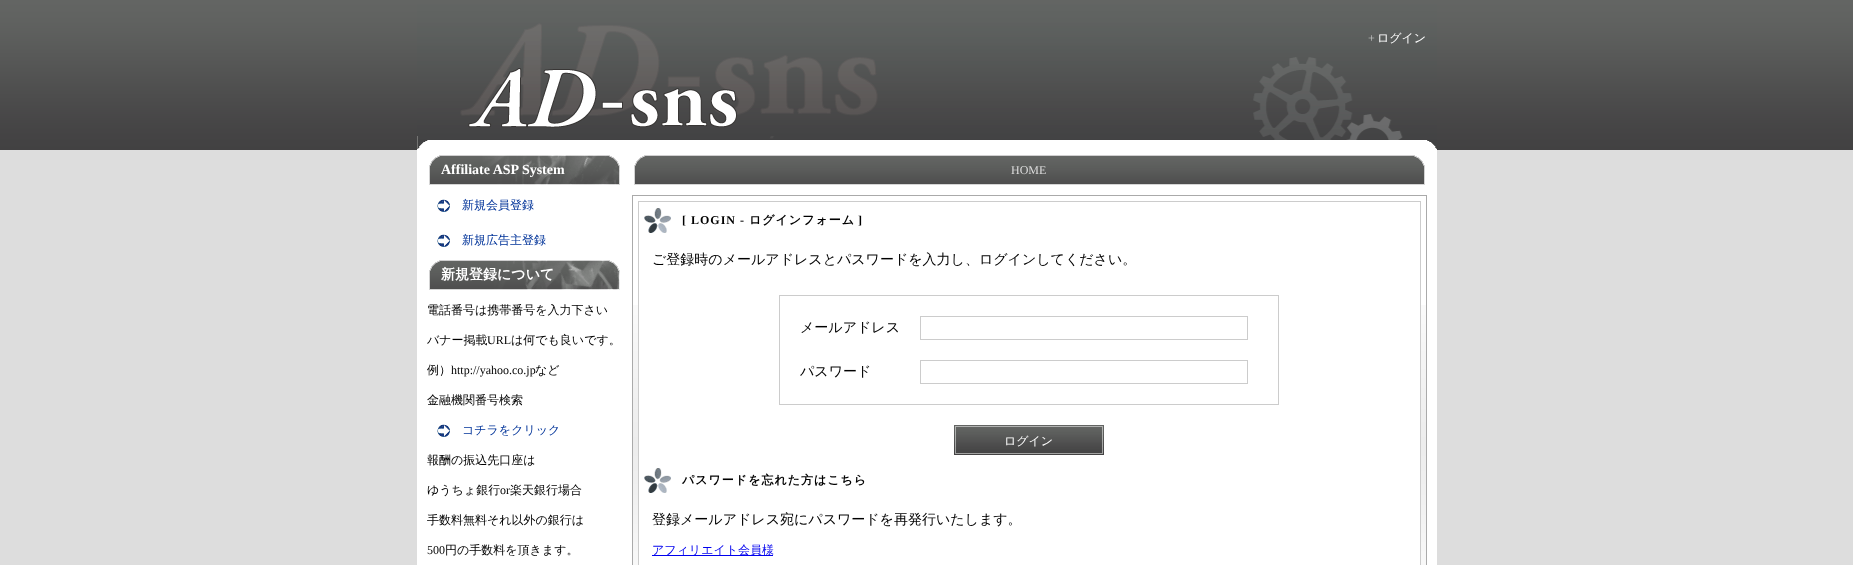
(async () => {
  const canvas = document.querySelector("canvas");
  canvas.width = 1853;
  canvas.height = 565;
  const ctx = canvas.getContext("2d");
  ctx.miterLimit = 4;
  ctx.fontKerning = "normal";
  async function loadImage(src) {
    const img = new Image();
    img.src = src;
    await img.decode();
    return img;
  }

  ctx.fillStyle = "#dddddd";
  ctx.fillRect(0, 0, 1853, 565);
  ctx.drawImage(await loadImage("img/1.png"), 0, 0, 1853, 150);
  ctx.fillStyle = "#ffffff";
  ctx.fillRect(417, 149, 1020, 416);
  ctx.drawImage(await loadImage("img/2.png"), 417, 0, 1020, 149);
  ctx.drawImage(await loadImage("img/3.png"), 429, 155, 191, 30);
  ctx.drawImage(await loadImage("img/4.png"), 437, 199, 13, 13);
  ctx.drawImage(await loadImage("img/4.png"), 437, 234, 13, 13);
  ctx.drawImage(await loadImage("img/5.png"), 429, 260, 191, 30);
  ctx.drawImage(await loadImage("img/4.png"), 437, 424, 13, 13);
  ctx.drawImage(await loadImage("img/6.png"), 634, 155, 791, 30);
  ctx.drawImage(await loadImage("img/7.png"), 633, 305, 793, 260);
  ctx.strokeStyle = "#aaaaaa";
  ctx.strokeRect(632.5, 195.5, 794, 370);
  ctx.fillRect(639, 305, 781, 260);
  ctx.strokeStyle = "#cccccc";
  ctx.strokeRect(638.5, 201.5, 782, 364);
  ctx.drawImage(await loadImage("img/8.png"), 644, 208, 27, 25);
  ctx.strokeRect(779.5, 295.5, 499, 109);
  ctx.strokeRect(920.5, 316.5, 327, 23);
  ctx.strokeRect(920.5, 360.5, 327, 23);
  ctx.drawImage(await loadImage("img/9.png"), 954, 425, 150, 30);
  ctx.drawImage(await loadImage("img/8.png"), 644, 468, 27, 25);
  ctx.fillStyle = "#0000ee";
  ctx.fillRect(652, 555, 121, 1);
  ctx.font = "12px Liberation Serif";
  ctx.fillStyle = "#cccccc";
  ctx.fillText("+", 1368, 42);
  ctx.font = "500 12px WenQuanYi Zen Hei";
  ctx.fillStyle = "#ffffff";
  ctx.fillText("ログイン", 1377, 42);
  ctx.font = "bold 14px Liberation Serif";
  ctx.fillText("Affiliate ASP System", 441, 174);
  ctx.font = "500 12px WenQuanYi Zen Hei";
  ctx.fillStyle = "#003399";
  ctx.fillText("新規会員登録", 462, 209);
  ctx.fillText("新規広告主登録", 462, 244);
  ctx.font = "bold 14px WenQuanYi Zen Hei";
  ctx.fillStyle = "#ffffff";
  ctx.fillText("新規登録について", 441, 279);
  ctx.font = "500 12px WenQuanYi Zen Hei";
  ctx.fillStyle = "#000000";
  ctx.fillText("電話番号は携帯番号を入力下さい", 427, 314);
  ctx.fillText("バナー掲載", 427, 344);
  ctx.font = "12px Liberation Serif";
  ctx.fillText("URL", 487, 344);
  ctx.font = "500 12px WenQuanYi Zen Hei";
  ctx.fillText("は何でも良いです。", 511, 344);
  ctx.fillText("例）", 427, 374);
  ctx.font = "12px Liberation Serif";
  ctx.fillText("http://yahoo.co.jp", 451, 374);
  ctx.font = "500 12px WenQuanYi Zen Hei";
  ctx.fillText("など", 535, 374);
  ctx.fillText("金融機関番号検索", 427, 404);
  ctx.fillStyle = "#003399";
  ctx.fillText("コチラをクリック", 462, 434);
  ctx.fillStyle = "#000000";
  ctx.fillText("報酬の振込先口座は", 427, 464);
  ctx.fillText("ゆうちょ銀行", 427, 494);
  ctx.font = "12px Liberation Serif";
  ctx.fillText("or", 500, 494);
  ctx.font = "500 12px WenQuanYi Zen Hei";
  ctx.fillText("楽天銀行場合", 510, 494);
  ctx.fillText("手数料無料それ以外の銀行は", 427, 524);
  ctx.font = "12px Liberation Serif";
  ctx.fillText("500", 427, 554);
  ctx.font = "500 12px WenQuanYi Zen Hei";
  ctx.fillText("円の手数料を頂きます。", 445, 554);
  ctx.font = "12px Liberation Serif";
  ctx.fillStyle = "#dddddd";
  ctx.fillText("HOME", 1011, 174);
  ctx.letterSpacing = "1px";
  ctx.font = "bold 12px Liberation Serif";
  ctx.fillStyle = "#000000";
  ctx.fillText("[ LOGIN -", 682, 224);
  ctx.font = "bold 12px WenQuanYi Zen Hei";
  ctx.fillText("ログインフォーム", 749, 224);
  ctx.font = "bold 12px Liberation Serif";
  ctx.fillText("]", 858, 224);
  ctx.letterSpacing = "0px";
  ctx.font = "500 14px WenQuanYi Zen Hei";
  for (const [text, x, y] of [
    ["ご登録時のメールアドレスとパスワードを入力し、ログインしてください。", 652, 264],
    ["メールアドレス", 800, 332],
    ["パスワード", 800, 376],
  ]) {
    ctx.fillText(text, x, y);
  }
  ctx.font = "500 12px WenQuanYi Zen Hei";
  ctx.fillStyle = "#ffffff";
  ctx.fillText("ログイン", 1004, 445);
  ctx.letterSpacing = "1px";
  ctx.font = "bold 12px WenQuanYi Zen Hei";
  ctx.fillStyle = "#000000";
  ctx.fillText("パスワードを忘れた方はこちら", 682, 484);
  ctx.letterSpacing = "0px";
  ctx.font = "500 14px WenQuanYi Zen Hei";
  ctx.fillText("登録メールアドレス宛にパスワードを再発行いたします。", 652, 524);
  ctx.font = "500 12px WenQuanYi Zen Hei";
  ctx.fillStyle = "#0000ee";
  ctx.fillText("アフィリエイト会員様", 652, 554);
})();
